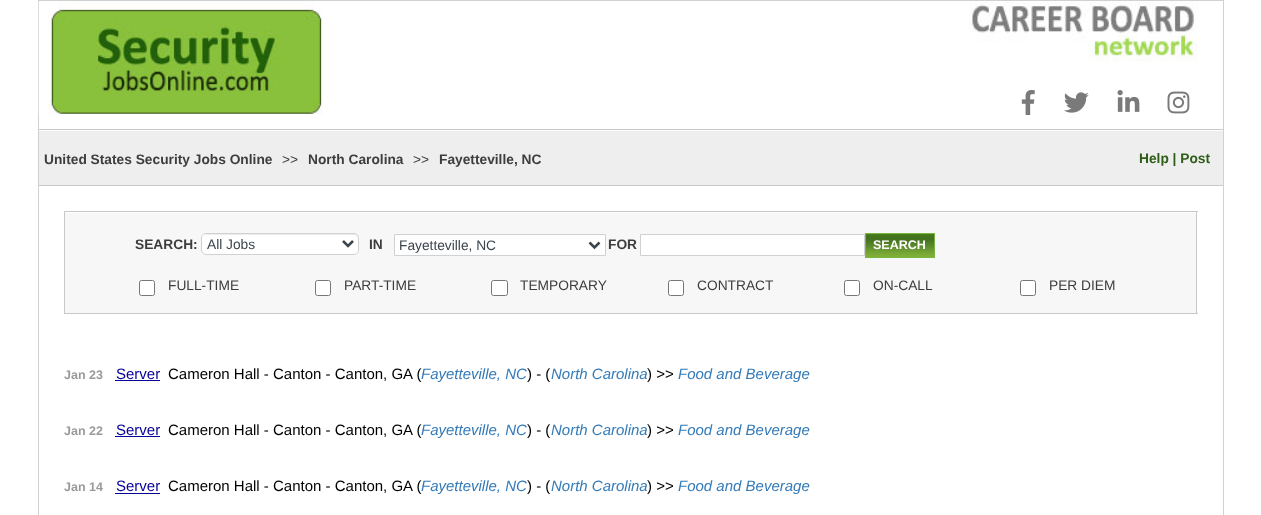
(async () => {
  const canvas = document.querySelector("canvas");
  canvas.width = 1261;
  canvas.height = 515;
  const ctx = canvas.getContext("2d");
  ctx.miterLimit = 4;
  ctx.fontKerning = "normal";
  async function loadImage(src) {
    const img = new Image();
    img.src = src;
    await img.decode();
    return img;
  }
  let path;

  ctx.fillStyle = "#ffffff";
  ctx.fillRect(0, 0, 1261, 515);
  for (const [x, y, w, h, color] of [
    [38, 0, 1186, 1, "#d0d1d2"],
    [1223, 0, 1, 515, "#d0d1d2"],
    [38, 0, 1, 515, "#d0d1d2"],
  ]) {
    ctx.fillStyle = color;
    ctx.fillRect(x, y, w, h);
  }
  ctx.drawImage(await loadImage("img/1.png"), 38, 1, 285, 114);
  ctx.drawImage(await loadImage("img/2.png"), 969, 1, 229, 61);
  ctx.drawImage(await loadImage("img/3.png"), 1021, 90, 14, 25);
  ctx.drawImage(await loadImage("img/4.png"), 1064, 92, 25, 21);
  ctx.drawImage(await loadImage("img/5.png"), 1117, 90, 23, 22);
  ctx.drawImage(await loadImage("img/6.png"), 1167, 91, 23, 23);
  for (const [x, y, w, h, color] of [
    [39, 131, 1184, 54, "#eeeeee"],
    [39, 129, 1184, 1, "#c8c8c8"],
    [39, 185, 1184, 1, "#c8c8c8"],
    [65, 213, 1131, 100, "#f7f7f7"],
    [64, 211, 1134, 1, "#c8c8c8"],
    [1196, 211, 1, 103, "#c8c8c8"],
    [64, 313, 1134, 1, "#c8c8c8"],
    [64, 211, 1, 103, "#c8c8c8"],
  ]) {
    ctx.fillStyle = color;
    ctx.fillRect(x, y, w, h);
  }
  ctx.fillStyle = "#ffffff";
  ctx.beginPath();
  ctx.roundRect(201, 233, 158, 22, 5);
  ctx.fill();
  ctx.fillStyle = "#ececec";
  path = new Path2D("M206 235H354C356 235 358 237 358 239V238C358 236 356 234 354 234H207C206 234 204 235 204 236Z");
  ctx.fill(path);
  ctx.beginPath();
  ctx.roundRect(201.5, 233.5, 157, 21, 4.5);
  ctx.strokeStyle = "#d0d1d2";
  ctx.stroke();
  path = new Path2D("M343 241L348 246L353 241");
  ctx.strokeStyle = "#3d454c";
  ctx.lineWidth = 2.5;
  ctx.stroke(path);
  ctx.fillStyle = "#ffffff";
  ctx.beginPath();
  ctx.rect(394.5, 234.5, 211, 21);
  ctx.fill();
  ctx.strokeStyle = "#d0d1d2";
  ctx.lineWidth = 1;
  ctx.stroke();
  path = new Path2D("M589.5 242.5L594.5 247.5L599.5 242.5");
  ctx.strokeStyle = "#3d454c";
  ctx.lineWidth = 2.5;
  ctx.stroke(path);
  ctx.beginPath();
  ctx.rect(640.5, 234.5, 224, 21);
  ctx.fill();
  ctx.strokeStyle = "#d0d1d2";
  ctx.lineWidth = 1;
  ctx.stroke();
  ctx.drawImage(await loadImage("img/7.png"), 866, 234, 68, 23);
  ctx.strokeStyle = "#77b641";
  ctx.strokeRect(865.5, 233.5, 69, 24);
  ctx.beginPath();
  ctx.roundRect(139.5, 280.5, 15, 15, 2);
  ctx.fill();
  ctx.strokeStyle = "#767676";
  ctx.stroke();
  ctx.beginPath();
  ctx.roundRect(315.5, 280.5, 15, 15, 2);
  ctx.fill();
  ctx.stroke();
  ctx.beginPath();
  ctx.roundRect(491.5, 280.5, 16, 15, 2);
  ctx.fill();
  ctx.stroke();
  ctx.beginPath();
  ctx.roundRect(668.5, 280.5, 15, 15, 2);
  ctx.fill();
  ctx.stroke();
  ctx.beginPath();
  ctx.roundRect(844.5, 280.5, 15, 15, 2);
  ctx.fill();
  ctx.stroke();
  ctx.beginPath();
  ctx.roundRect(1020.5, 280.5, 15, 15, 2);
  ctx.fill();
  ctx.stroke();
  for (const [x, y, w, h, color] of [
    [115, 380, 45, 1, "#070098"],
    [115, 436, 45, 1, "#070098"],
    [115, 493, 45, 1, "#070098"],
  ]) {
    ctx.fillStyle = color;
    ctx.fillRect(x, y, w, h);
  }
  ctx.font = "bold 13.75px Liberation Sans";
  ctx.fillStyle = "#3e3d3d";
  ctx.fillText("United States Security Jobs Online", 44, 164);
  ctx.font = "13.75px Liberation Sans";
  ctx.fillText(">>", 282, 164);
  ctx.font = "bold 13.75px Liberation Sans";
  ctx.fillText("North Carolina", 308, 164);
  ctx.font = "13.75px Liberation Sans";
  ctx.fillText(">>", 413, 164);
  ctx.font = "bold 13.75px Liberation Sans";
  ctx.fillText("Fayetteville, NC", 439, 164);
  ctx.fillStyle = "#2d5d17";
  ctx.fillText("Help | Post", 1139, 163);
  ctx.fillStyle = "#3e3d3d";
  ctx.fillText("SEARCH:", 135, 249);
  ctx.font = "13.75px Liberation Sans";
  ctx.fillStyle = "#3d454c";
  ctx.fillText("All Jobs", 207, 249);
  ctx.font = "bold 13.75px Liberation Sans";
  ctx.fillStyle = "#3e3d3d";
  ctx.fillText("IN", 369, 249);
  ctx.font = "13.75px Liberation Sans";
  ctx.fillStyle = "#3d454c";
  ctx.fillText("Fayetteville, NC", 399, 250);
  ctx.font = "bold 13.75px Liberation Sans";
  ctx.fillStyle = "#3e3d3d";
  ctx.fillText("FOR", 608, 249);
  ctx.font = "bold 12.5px Liberation Sans";
  ctx.fillStyle = "#ffffff";
  ctx.fillText("SEARCH", 873, 249);
  ctx.font = "13.75px Liberation Sans";
  ctx.fillStyle = "#3e3d3d";
  for (const [text, x, y] of [
    ["FULL-TIME", 168, 290],
    ["PART-TIME", 344, 290],
    ["TEMPORARY", 520, 290],
    ["CONTRACT", 697, 290],
    ["ON-CALL", 873, 290],
    ["PER DIEM", 1049, 290],
  ]) {
    ctx.fillText(text, x, y);
  }
  ctx.font = "bold 12.5px Liberation Sans";
  ctx.fillStyle = "#9b9a9a";
  ctx.fillText("Jan 23", 64, 379);
  ctx.font = "15px Liberation Sans";
  ctx.fillStyle = "#070098";
  ctx.fillText("Server", 116, 379);
  ctx.fillStyle = "#000000";
  ctx.fillText("Cameron Hall - Canton - Canton, GA (", 168, 379);
  ctx.font = "italic 15px Liberation Sans";
  ctx.fillStyle = "#337ab7";
  ctx.fillText("Fayetteville, NC", 421, 379);
  ctx.font = "15px Liberation Sans";
  ctx.fillStyle = "#000000";
  ctx.fillText(") - (", 527, 379);
  ctx.font = "italic 15px Liberation Sans";
  ctx.fillStyle = "#337ab7";
  ctx.fillText("North Carolina", 551, 379);
  ctx.font = "15px Liberation Sans";
  ctx.fillStyle = "#000000";
  ctx.fillText(") >>", 647, 379);
  ctx.font = "italic 15px Liberation Sans";
  ctx.fillStyle = "#337ab7";
  ctx.fillText("Food and Beverage", 678, 379);
  ctx.font = "bold 12.5px Liberation Sans";
  ctx.fillStyle = "#9b9a9a";
  ctx.fillText("Jan 22", 64, 435);
  ctx.font = "15px Liberation Sans";
  ctx.fillStyle = "#070098";
  ctx.fillText("Server", 116, 435);
  ctx.fillStyle = "#000000";
  ctx.fillText("Cameron Hall - Canton - Canton, GA (", 168, 435);
  ctx.font = "italic 15px Liberation Sans";
  ctx.fillStyle = "#337ab7";
  ctx.fillText("Fayetteville, NC", 421, 435);
  ctx.font = "15px Liberation Sans";
  ctx.fillStyle = "#000000";
  ctx.fillText(") - (", 527, 435);
  ctx.font = "italic 15px Liberation Sans";
  ctx.fillStyle = "#337ab7";
  ctx.fillText("North Carolina", 551, 435);
  ctx.font = "15px Liberation Sans";
  ctx.fillStyle = "#000000";
  ctx.fillText(") >>", 647, 435);
  ctx.font = "italic 15px Liberation Sans";
  ctx.fillStyle = "#337ab7";
  ctx.fillText("Food and Beverage", 678, 435);
  ctx.font = "bold 12.5px Liberation Sans";
  ctx.fillStyle = "#9b9a9a";
  ctx.fillText("Jan 14", 64, 491);
  ctx.font = "15px Liberation Sans";
  ctx.fillStyle = "#070098";
  ctx.fillText("Server", 116, 491);
  ctx.fillStyle = "#000000";
  ctx.fillText("Cameron Hall - Canton - Canton, GA (", 168, 491);
  ctx.font = "italic 15px Liberation Sans";
  ctx.fillStyle = "#337ab7";
  ctx.fillText("Fayetteville, NC", 421, 491);
  ctx.font = "15px Liberation Sans";
  ctx.fillStyle = "#000000";
  ctx.fillText(") - (", 527, 491);
  ctx.font = "italic 15px Liberation Sans";
  ctx.fillStyle = "#337ab7";
  ctx.fillText("North Carolina", 551, 491);
  ctx.font = "15px Liberation Sans";
  ctx.fillStyle = "#000000";
  ctx.fillText(") >>", 647, 491);
  ctx.font = "italic 15px Liberation Sans";
  ctx.fillStyle = "#337ab7";
  ctx.fillText("Food and Beverage", 678, 491);
})();
